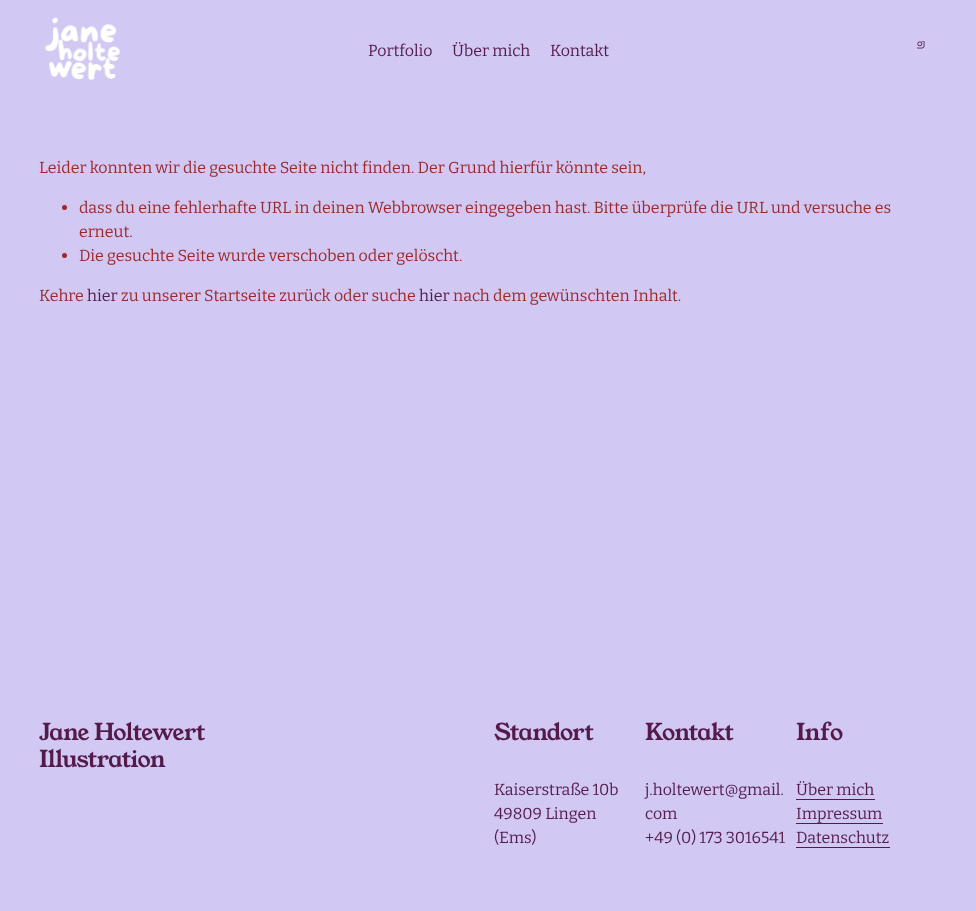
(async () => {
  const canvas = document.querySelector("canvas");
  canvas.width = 976;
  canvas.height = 911;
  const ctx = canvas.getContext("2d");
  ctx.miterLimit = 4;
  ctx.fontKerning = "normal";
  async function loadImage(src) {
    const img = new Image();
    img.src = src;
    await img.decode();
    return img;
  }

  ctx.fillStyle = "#d1c8f4";
  ctx.fillRect(0, 0, 976, 911);
  ctx.drawImage(await loadImage("img/1.png"), 45, 17, 76, 64);
  ctx.drawImage(await loadImage("img/2.png"), 917, 41, 8, 8);
  ctx.fillStyle = "#9b2929";
  ctx.beginPath();
  ctx.arc(64.5, 207.5, 2.5, 0, Math.PI * 2);
  ctx.fill();
  ctx.beginPath();
  ctx.arc(64.5, 255.5, 2.5, 0, Math.PI * 2);
  ctx.fill();
  for (const [x, y, w, h, color] of [
    [796, 799, 79, 1, "#531a4a"],
    [796, 823, 87, 1, "#531a4a"],
    [796, 847, 94, 1, "#531a4a"],
  ]) {
    ctx.fillStyle = color;
    ctx.fillRect(x, y, w, h);
  }
  ctx.font = "16px Bitter";
  for (const [text, x, y] of [
    ["Portfolio", 368, 56],
    ["Über mich", 452, 56],
    ["Kontakt", 550, 56],
  ]) {
    ctx.fillText(text, x, y);
  }
  ctx.fillStyle = "#9b2929";
  for (const [text, x, y] of [
    ["Leider konnten wir die gesuchte Seite nicht finden. Der Grund hierfür könnte sein,", 39, 173],
    ["dass du eine fehlerhafte URL in deinen Webbrowser eingegeben hast. Bitte überprüfe die URL und versuche es", 79, 213],
    ["erneut.", 79, 237],
    ["Die gesuchte Seite wurde verschoben oder gelöscht.", 79, 261],
    ["Kehre", 39, 301],
  ]) {
    ctx.fillText(text, x, y);
  }
  ctx.fillStyle = "#531a4a";
  ctx.fillText("hier", 87, 301);
  ctx.fillStyle = "#9b2929";
  ctx.fillText("zu unserer Startseite zurück oder suche", 121, 301);
  ctx.fillStyle = "#531a4a";
  ctx.fillText("hier", 419, 301);
  ctx.fillStyle = "#9b2929";
  ctx.fillText("nach dem gewünschten Inhalt.", 453, 301);
  ctx.letterSpacing = "-0.5px";
  ctx.font = "23px Young Serif";
  ctx.fillStyle = "#531a4a";
  for (const [text, x, y] of [
    ["Jane Holtewert", 39, 740],
    ["Illustration", 39, 767],
    ["Standort", 494, 740],
  ]) {
    ctx.fillText(text, x, y);
  }
  ctx.letterSpacing = "0px";
  ctx.font = "16px Bitter";
  for (const [text, x, y] of [
    ["Kaiserstraße 10b", 494, 795],
    ["49809 Lingen", 494, 819],
    ["(Ems)", 494, 843],
  ]) {
    ctx.fillText(text, x, y);
  }
  ctx.letterSpacing = "-0.5px";
  ctx.font = "23px Young Serif";
  ctx.fillText("Kontakt", 645, 740);
  ctx.letterSpacing = "0px";
  ctx.font = "16px Bitter";
  for (const [text, x, y] of [
    ["j.holtewert@gmail.", 645, 795],
    ["com", 645, 819],
    ["+49 (0) 173 3016541", 645, 843],
  ]) {
    ctx.fillText(text, x, y);
  }
  ctx.letterSpacing = "-0.5px";
  ctx.font = "23px Young Serif";
  ctx.fillText("Info", 796, 740);
  ctx.letterSpacing = "0px";
  ctx.font = "16px Bitter";
  for (const [text, x, y] of [
    ["Über mich", 796, 795],
    ["Impressum", 796, 819],
    ["Datenschutz", 796, 843],
  ]) {
    ctx.fillText(text, x, y);
  }
})();
